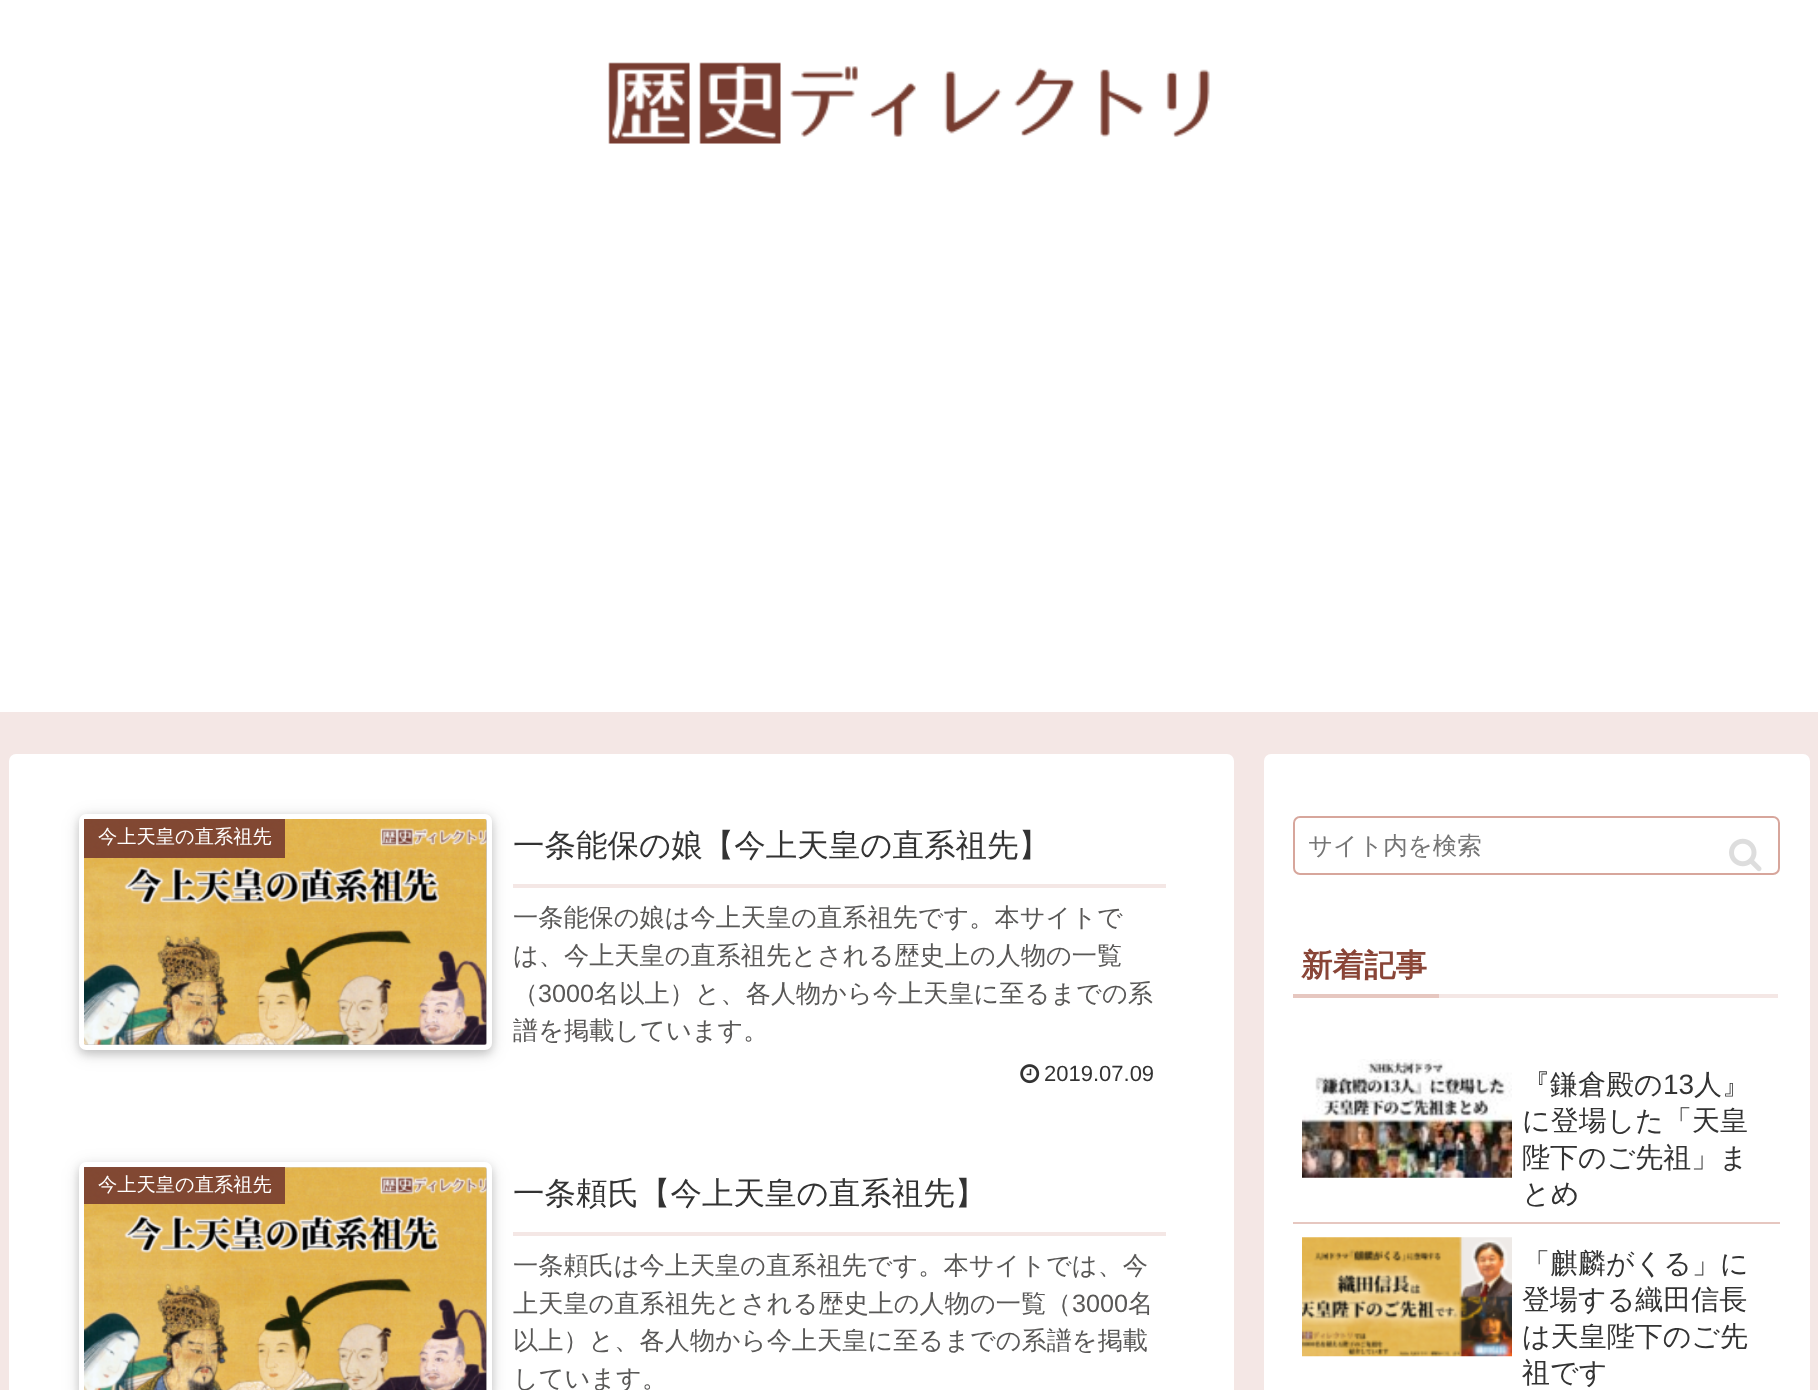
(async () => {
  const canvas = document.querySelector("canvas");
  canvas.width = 1818;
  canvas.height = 1390;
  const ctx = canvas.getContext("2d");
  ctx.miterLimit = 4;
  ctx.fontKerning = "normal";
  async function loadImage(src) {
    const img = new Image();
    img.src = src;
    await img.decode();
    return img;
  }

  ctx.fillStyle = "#f4e7e5";
  ctx.fillRect(0, 0, 1818, 1390);
  ctx.fillStyle = "#ffffff";
  ctx.fillRect(0, 0, 1818, 712);
  ctx.drawImage(await loadImage("img/1.png"), 608, 62, 602, 82);
  ctx.beginPath();
  ctx.roundRect(9, 754, 1225, 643, 7);
  ctx.fill();
  ctx.fillStyle = "#f4e7e5";
  ctx.fillRect(513, 884, 653, 4);
  ctx.fillStyle = "rgba(0, 0, 0, 0.12)";
  ctx.filter = "blur(9px)";
  ctx.beginPath();
  ctx.roundRect(79, 817, 413, 237, 7);
  ctx.fill();
  ctx.filter = "none";
  ctx.fillStyle = "rgba(0, 0, 0, 0.16)";
  ctx.filter = "blur(4.5px)";
  ctx.beginPath();
  ctx.roundRect(79, 817, 413, 237, 7);
  ctx.fill();
  ctx.filter = "none";
  ctx.beginPath();
  ctx.roundRect(81.5, 816.5, 408, 231, 4.5);
  ctx.strokeStyle = "#ffffff";
  ctx.lineWidth = 5;
  ctx.stroke();
  ctx.drawImage(await loadImage("img/2.png"), 84, 819, 403, 226);
  ctx.fillStyle = "rgba(119, 60, 48, 0.9)";
  ctx.fillRect(84, 819, 201, 39);
  ctx.drawImage(await loadImage("img/3.png"), 1020, 1064, 20, 20);
  ctx.fillStyle = "#f4e7e5";
  ctx.fillRect(513, 1232, 653, 4);
  ctx.fillStyle = "rgba(0, 0, 0, 0.12)";
  ctx.filter = "blur(9px)";
  ctx.beginPath();
  ctx.roundRect(79, 1166, 413, 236, 7);
  ctx.fill();
  ctx.filter = "none";
  ctx.fillStyle = "rgba(0, 0, 0, 0.16)";
  ctx.filter = "blur(4.5px)";
  ctx.beginPath();
  ctx.roundRect(79, 1166, 413, 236, 7);
  ctx.fill();
  ctx.filter = "none";
  ctx.beginPath();
  ctx.roundRect(81.5, 1164.5, 408, 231, 4.5);
  ctx.stroke();
  ctx.drawImage(await loadImage("img/4.png"), 84, 1167, 403, 223);
  ctx.fillStyle = "rgba(119, 60, 48, 0.9)";
  ctx.fillRect(84, 1167, 201, 37);
  ctx.fillStyle = "#ffffff";
  ctx.beginPath();
  ctx.roundRect(1264, 754, 546, 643, 7);
  ctx.fill();
  ctx.beginPath();
  ctx.roundRect(1294, 817, 485, 57, 6);
  ctx.strokeStyle = "#d7a69c";
  ctx.lineWidth = 2;
  ctx.stroke();
  ctx.drawImage(await loadImage("img/5.png"), 1729, 838, 33, 34);
  for (const [x, y, w, h, color] of [
    [1439, 994, 339, 4, "#f4e7e5"],
    [1293, 994, 146, 4, "#e6c7c0"],
    [1293, 1222, 487, 2, "#e6c7c0"],
  ]) {
    ctx.fillStyle = color;
    ctx.fillRect(x, y, w, h);
  }
  ctx.drawImage(await loadImage("img/6.png"), 1302, 1059, 210, 119);
  ctx.drawImage(await loadImage("img/7.png"), 1302, 1237, 210, 120);
  ctx.font = "500 19.25px WenQuanYi Zen Hei";
  ctx.fillStyle = "#ffffff";
  ctx.fillText("今上天皇の直系祖先", 98, 843);
  ctx.font = "500 31.5px WenQuanYi Zen Hei";
  ctx.fillStyle = "#333333";
  ctx.fillText("一条能保の娘【今上天皇の直系祖先】", 513, 856);
  ctx.font = "500 25.2px WenQuanYi Zen Hei";
  ctx.fillStyle = "#595857";
  for (const [text, x, y] of [
    ["一条能保の娘は今上天皇の直系祖先です。本サイトで", 513, 926],
    ["は、今上天皇の直系祖先とされる歴史上の人物の一覧", 513, 964],
    ["（", 513, 1002],
  ]) {
    ctx.fillText(text, x, y);
  }
  ctx.font = "25.2px Liberation Sans";
  ctx.fillText("3000", 538, 1002);
  ctx.font = "500 25.2px WenQuanYi Zen Hei";
  ctx.fillText("名以上）と、各人物から今上天皇に至るまでの系", 594, 1002);
  ctx.fillText("譜を掲載しています。", 513, 1039);
  ctx.font = "22px Liberation Sans";
  ctx.fillStyle = "#333333";
  ctx.fillText("2019.07.09", 1044, 1081);
  ctx.font = "500 19.25px WenQuanYi Zen Hei";
  ctx.fillStyle = "#ffffff";
  ctx.fillText("今上天皇の直系祖先", 98, 1191);
  ctx.font = "500 31.5px WenQuanYi Zen Hei";
  ctx.fillStyle = "#333333";
  ctx.fillText("一条頼氏【今上天皇の直系祖先】", 513, 1204);
  ctx.font = "500 25.2px WenQuanYi Zen Hei";
  ctx.fillStyle = "#595857";
  ctx.fillText("一条頼氏は今上天皇の直系祖先です。本サイトでは、今", 513, 1274);
  ctx.fillText("上天皇の直系祖先とされる歴史上の人物の一覧（", 513, 1312);
  ctx.font = "25.2px Liberation Sans";
  ctx.fillText("3000", 1072, 1312);
  ctx.font = "500 25.2px WenQuanYi Zen Hei";
  for (const [text, x, y] of [
    ["名", 1128, 1312],
    ["以上）と、各人物から今上天皇に至るまでの系譜を掲載", 513, 1349],
    ["しています。", 513, 1387],
  ]) {
    ctx.fillText(text, x, y);
  }
  ctx.font = "500 24.5px WenQuanYi Zen Hei";
  ctx.fillStyle = "#757575";
  ctx.fillText("サイト内を検索", 1308, 854);
  ctx.font = "bold 31.5px WenQuanYi Zen Hei";
  ctx.fillStyle = "#894537";
  ctx.fillText("新着記事", 1301, 976);
  ctx.font = "500 28px WenQuanYi Zen Hei";
  ctx.fillStyle = "#333333";
  ctx.fillText("『鎌倉殿の", 1522, 1094);
  ctx.font = "28px Liberation Sans";
  ctx.fillText("13", 1663, 1094);
  ctx.font = "500 28px WenQuanYi Zen Hei";
  for (const [text, x, y] of [
    ["人』", 1694, 1094],
    ["に登場した「天皇", 1522, 1130],
    ["陛下のご先祖」ま", 1522, 1167],
    ["とめ", 1522, 1203],
    ["「麒麟がくる」に", 1522, 1273],
    ["登場する織田信長", 1522, 1309],
    ["は天皇陛下のご先", 1522, 1346],
    ["祖です", 1522, 1382],
  ]) {
    ctx.fillText(text, x, y);
  }
})();
